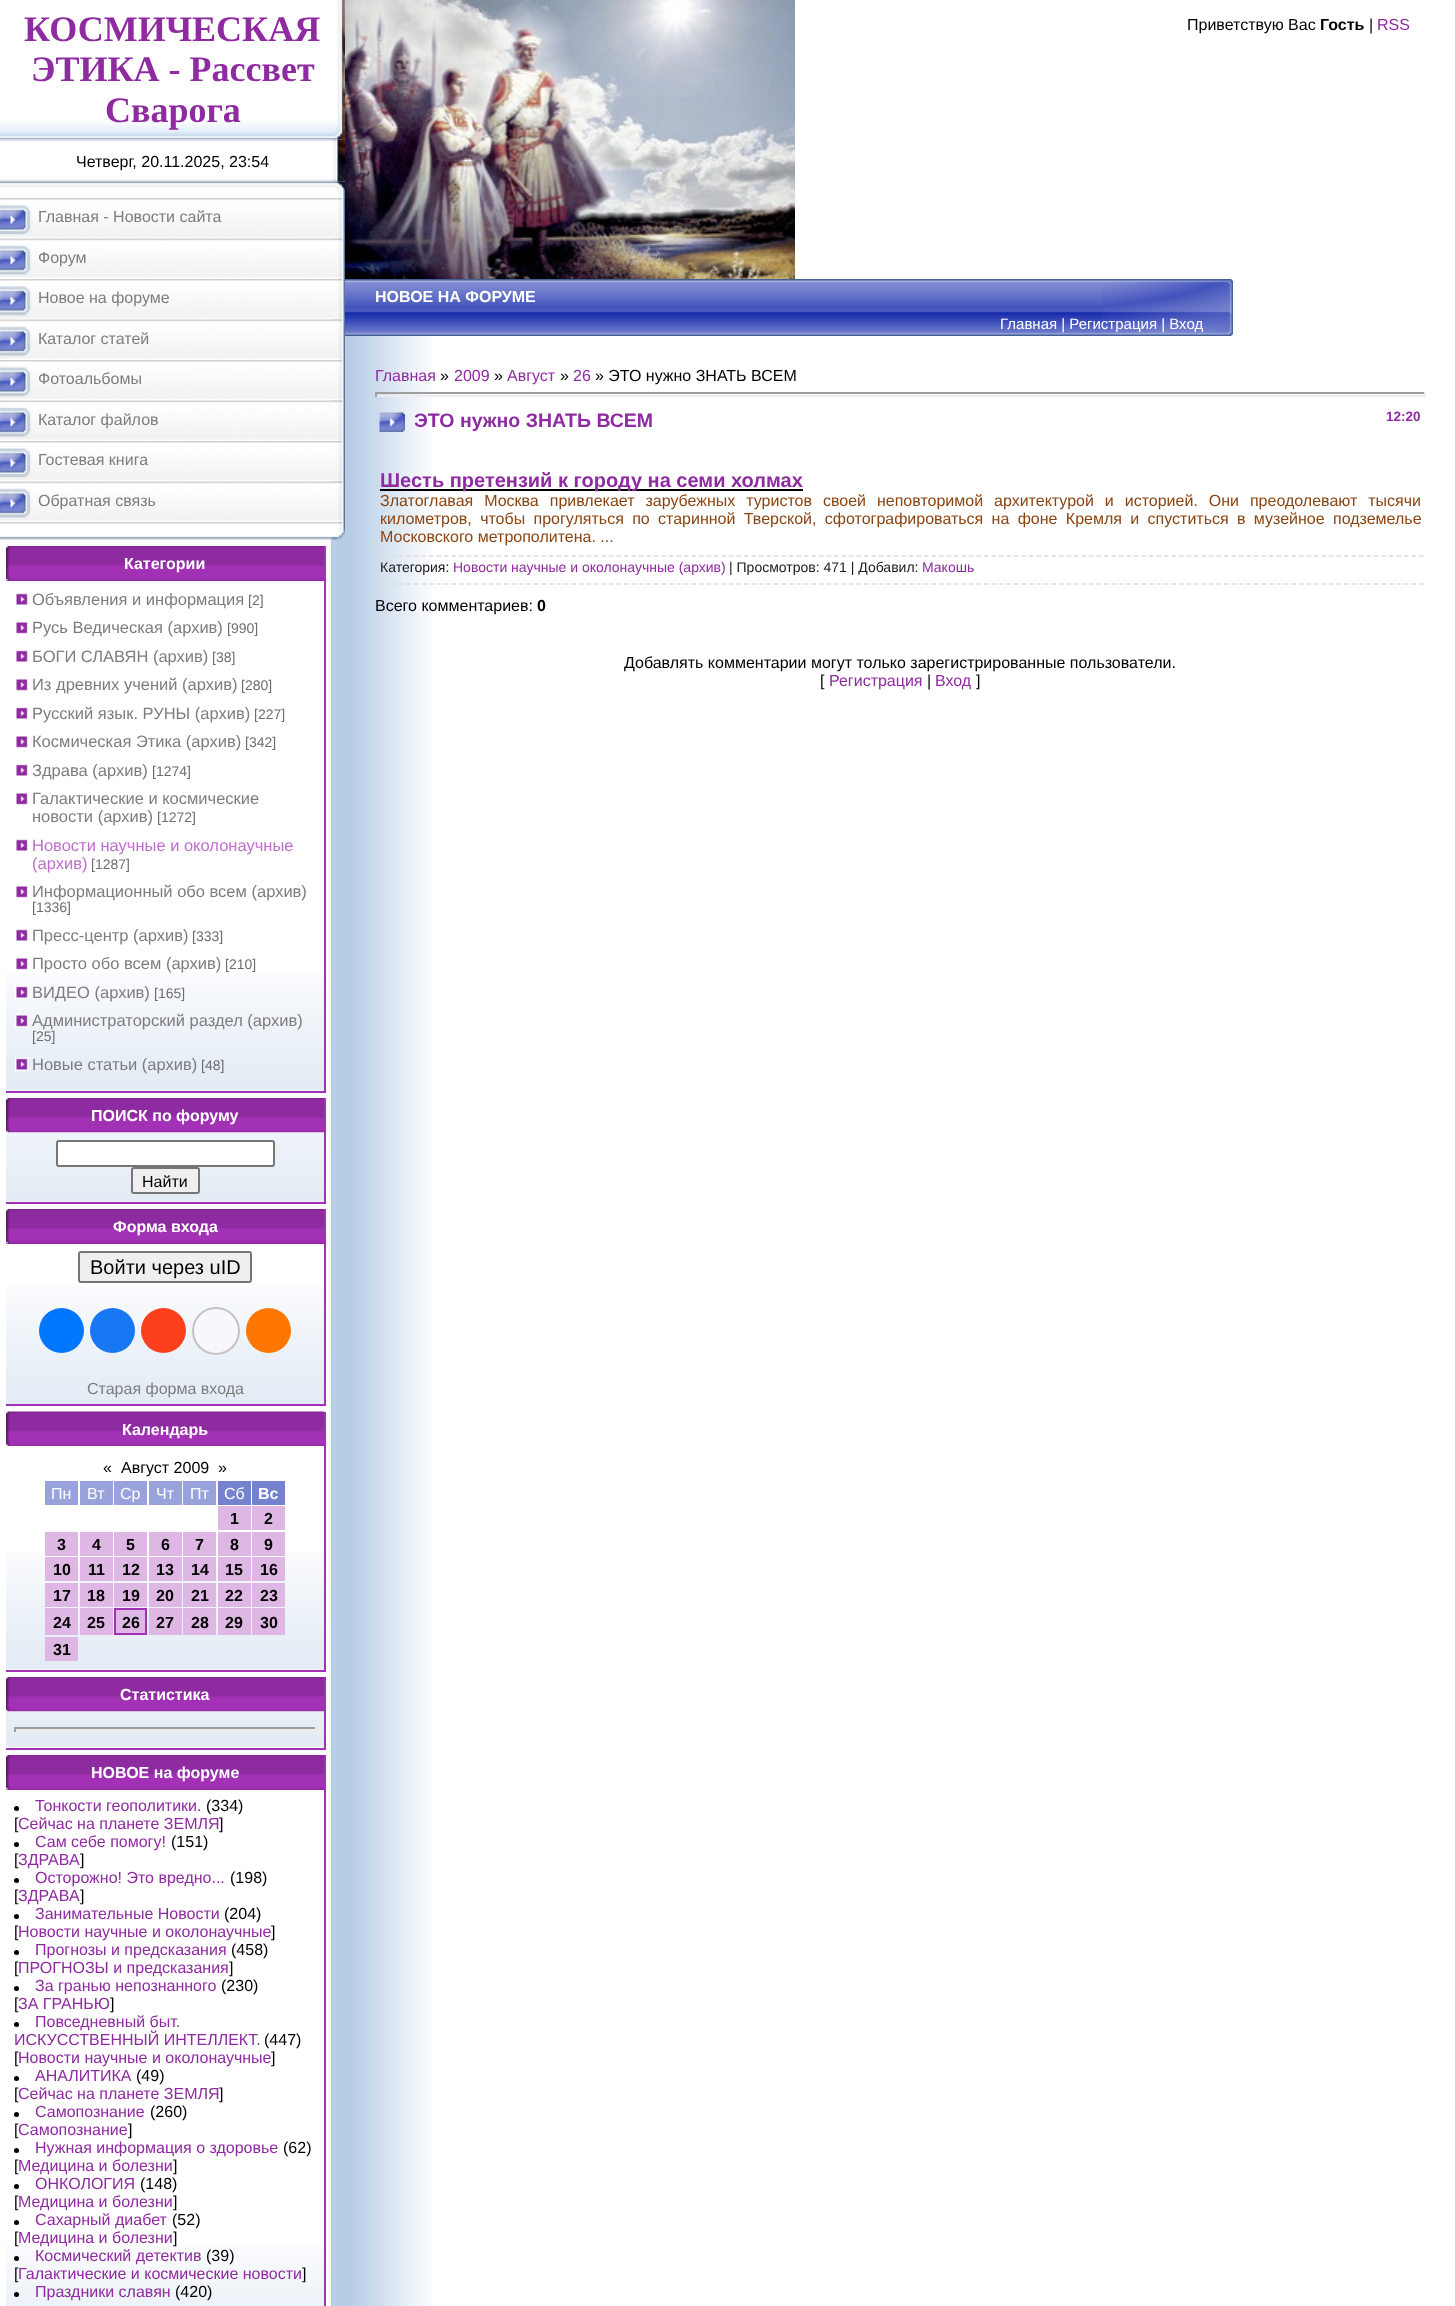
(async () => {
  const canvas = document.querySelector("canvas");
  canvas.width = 1455;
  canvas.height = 2306;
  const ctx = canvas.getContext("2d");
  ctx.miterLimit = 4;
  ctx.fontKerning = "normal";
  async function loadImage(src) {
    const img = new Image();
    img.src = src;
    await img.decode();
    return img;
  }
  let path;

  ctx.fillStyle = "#ffffff";
  ctx.fillRect(0, 0, 1455, 2306);
  ctx.fillStyle = "#b7cde6";
  ctx.fillRect(331, 139, 14, 2167);
  ctx.drawImage(await loadImage("img/1.png"), 0, 0, 345, 140);
  ctx.drawImage(await loadImage("img/2.png"), 0, 139, 345, 43);
  ctx.drawImage(await loadImage("img/3.png"), 0, 181, 345, 17);
  ctx.drawImage(await loadImage("img/4.png"), 0, 198, 345, 41);
  ctx.drawImage(await loadImage("img/5.png"), 0, 238, 345, 41);
  ctx.drawImage(await loadImage("img/4.png"), 0, 279, 345, 41);
  ctx.drawImage(await loadImage("img/5.png"), 0, 319, 345, 41);
  ctx.drawImage(await loadImage("img/4.png"), 0, 360, 345, 41);
  ctx.drawImage(await loadImage("img/5.png"), 0, 400, 345, 41);
  ctx.drawImage(await loadImage("img/4.png"), 0, 441, 345, 41);
  ctx.drawImage(await loadImage("img/5.png"), 0, 481, 345, 41);
  ctx.drawImage(await loadImage("img/6.png"), 0, 522, 345, 18);
  for (const [x, y, w, h, color] of [
    [324, 546, 2, 546, "#a331b6"],
    [6, 1091, 320, 2, "#a331b6"],
    [6, 580, 318, 1, "#8f2ba0"],
  ]) {
    ctx.fillStyle = color;
    ctx.fillRect(x, y, w, h);
  }
  ctx.drawImage(await loadImage("img/7.png"), 6, 546, 318, 35);
  ctx.drawImage(await loadImage("img/8.png"), 6, 972, 318, 119);
  ctx.drawImage(await loadImage("img/9.png"), 16, 593, 12, 12);
  ctx.drawImage(await loadImage("img/10.png"), 16, 622, 12, 12);
  ctx.drawImage(await loadImage("img/9.png"), 16, 650, 12, 12);
  ctx.drawImage(await loadImage("img/10.png"), 16, 679, 12, 12);
  ctx.drawImage(await loadImage("img/9.png"), 16, 707, 12, 12);
  ctx.drawImage(await loadImage("img/10.png"), 16, 736, 12, 12);
  ctx.drawImage(await loadImage("img/9.png"), 16, 764, 12, 12);
  ctx.drawImage(await loadImage("img/10.png"), 16, 793, 12, 12);
  ctx.drawImage(await loadImage("img/9.png"), 16, 839, 12, 12);
  ctx.drawImage(await loadImage("img/10.png"), 16, 886, 12, 12);
  ctx.drawImage(await loadImage("img/9.png"), 16, 929, 12, 12);
  ctx.drawImage(await loadImage("img/10.png"), 16, 958, 12, 12);
  ctx.drawImage(await loadImage("img/11.png"), 15, 986, 14, 13);
  ctx.drawImage(await loadImage("img/12.png"), 15, 1014, 14, 14);
  ctx.drawImage(await loadImage("img/13.png"), 15, 1057, 14, 14);
  ctx.fillStyle = "#a331b6";
  ctx.fillRect(324, 1098, 2, 105);
  ctx.fillRect(6, 1202, 320, 2);
  ctx.drawImage(await loadImage("img/7.png"), 6, 1098, 318, 35);
  ctx.drawImage(await loadImage("img/14.png"), 6, 1132, 318, 70);
  ctx.fillStyle = "#ffffff";
  ctx.beginPath();
  ctx.roundRect(57, 1141, 217, 25, 2);
  ctx.fill();
  ctx.strokeStyle = "#767676";
  ctx.lineWidth = 2;
  ctx.stroke();
  ctx.fillStyle = "#efefef";
  ctx.beginPath();
  ctx.roundRect(132, 1168, 67, 25, 2);
  ctx.fill();
  ctx.stroke();
  for (const [x, y, w, h, color] of [
    [324, 1209, 2, 197, "#a331b6"],
    [6, 1404, 320, 2, "#a331b6"],
    [6, 1243, 318, 1, "#8f2ba0"],
  ]) {
    ctx.fillStyle = color;
    ctx.fillRect(x, y, w, h);
  }
  ctx.drawImage(await loadImage("img/7.png"), 6, 1209, 318, 35);
  ctx.drawImage(await loadImage("img/15.png"), 6, 1286, 318, 118);
  ctx.fillStyle = "#efefef";
  ctx.beginPath();
  ctx.roundRect(79, 1252, 172, 30, 2);
  ctx.fill();
  ctx.stroke();
  ctx.fillStyle = "#0077ff";
  ctx.beginPath();
  ctx.arc(61.5, 1330.5, 22.5, 0, Math.PI * 2);
  ctx.fill();
  ctx.fillStyle = "#1877f2";
  ctx.beginPath();
  ctx.arc(112.5, 1330.5, 22.5, 0, Math.PI * 2);
  ctx.fill();
  ctx.fillStyle = "#fc3f1d";
  ctx.beginPath();
  ctx.arc(163.5, 1330.5, 22.5, 0, Math.PI * 2);
  ctx.fill();
  ctx.fillStyle = "#f8f8fc";
  ctx.beginPath();
  ctx.arc(216, 1331, 23, 0, Math.PI * 2);
  ctx.fill();
  ctx.strokeStyle = "#c4c4c4";
  ctx.stroke();
  ctx.fillStyle = "#ff7700";
  ctx.beginPath();
  ctx.arc(268.5, 1330.5, 22.5, 0, Math.PI * 2);
  ctx.fill();
  ctx.fillStyle = "#a331b6";
  ctx.fillRect(324, 1412, 2, 259);
  ctx.fillRect(6, 1670, 320, 2);
  ctx.drawImage(await loadImage("img/16.png"), 6, 1411, 318, 35);
  ctx.drawImage(await loadImage("img/17.png"), 6, 1551, 318, 119);
  for (const [x, y, w, h, color] of [
    [45, 1481, 33, 24, "#99a2db"],
    [80, 1481, 33, 24, "#99a2db"],
    [114, 1481, 33, 24, "#99a2db"],
    [149, 1481, 33, 24, "#99a2db"],
    [183, 1481, 33, 24, "#99a2db"],
    [218, 1481, 33, 24, "#7582ce"],
    [252, 1481, 33, 24, "#7582ce"],
    [218, 1506, 33, 24, "#deb7e4"],
    [252, 1506, 33, 24, "#deb7e4"],
    [45, 1532, 33, 24, "#deb7e4"],
    [80, 1532, 33, 24, "#deb7e4"],
    [114, 1532, 33, 24, "#deb7e4"],
    [149, 1532, 33, 24, "#deb7e4"],
    [183, 1532, 33, 24, "#deb7e4"],
    [218, 1532, 33, 24, "#deb7e4"],
    [252, 1532, 33, 24, "#deb7e4"],
    [45, 1557, 33, 24, "#deb7e4"],
    [80, 1557, 33, 24, "#deb7e4"],
    [114, 1557, 33, 24, "#deb7e4"],
    [149, 1557, 33, 24, "#deb7e4"],
    [183, 1557, 33, 24, "#deb7e4"],
    [218, 1557, 33, 24, "#deb7e4"],
    [252, 1557, 33, 24, "#deb7e4"],
    [45, 1583, 33, 24, "#deb7e4"],
    [80, 1583, 33, 24, "#deb7e4"],
    [114, 1583, 33, 24, "#deb7e4"],
    [149, 1583, 33, 24, "#deb7e4"],
    [183, 1583, 33, 24, "#deb7e4"],
    [218, 1583, 33, 24, "#deb7e4"],
    [252, 1583, 33, 24, "#deb7e4"],
    [45, 1608, 33, 27, "#deb7e4"],
    [80, 1608, 33, 27, "#deb7e4"],
  ]) {
    ctx.fillStyle = color;
    ctx.fillRect(x, y, w, h);
  }
  ctx.beginPath();
  ctx.rect(115, 1609, 31, 25);
  ctx.fill();
  ctx.strokeStyle = "#a331b6";
  ctx.stroke();
  for (const [x, y, w, h, color] of [
    [149, 1608, 33, 27, "#deb7e4"],
    [183, 1608, 33, 27, "#deb7e4"],
    [218, 1608, 33, 27, "#deb7e4"],
    [252, 1608, 33, 27, "#deb7e4"],
    [45, 1637, 33, 24, "#deb7e4"],
    [324, 1677, 2, 72, "#a331b6"],
    [6, 1748, 320, 2, "#a331b6"],
  ]) {
    ctx.fillStyle = color;
    ctx.fillRect(x, y, w, h);
  }
  ctx.drawImage(await loadImage("img/7.png"), 6, 1677, 318, 35);
  ctx.drawImage(await loadImage("img/18.png"), 6, 1711, 318, 37);
  for (const [x, y, w, h, color] of [
    [14, 1727, 303, 2, "#9f9f9f"],
    [315, 1727, 2, 5, "#eeeeee"],
    [14, 1730, 303, 2, "#eeeeee"],
    [14, 1727, 2, 5, "#9f9f9f"],
    [324, 1755, 2, 551, "#a331b6"],
    [6, 1789, 318, 1, "#8f2ba0"],
  ]) {
    ctx.fillStyle = color;
    ctx.fillRect(x, y, w, h);
  }
  ctx.drawImage(await loadImage("img/7.png"), 6, 1755, 318, 35);
  ctx.drawImage(await loadImage("img/19.png"), 6, 2244, 318, 62);
  ctx.fillStyle = "#000000";
  ctx.beginPath();
  ctx.arc(16.5, 1808.5, 2.5, 0, Math.PI * 2);
  ctx.fill();
  ctx.beginPath();
  ctx.arc(16.5, 1844.5, 2.5, 0, Math.PI * 2);
  ctx.fill();
  ctx.beginPath();
  ctx.arc(16.5, 1880.5, 2.5, 0, Math.PI * 2);
  ctx.fill();
  ctx.beginPath();
  ctx.arc(16.5, 1916.5, 2.5, 0, Math.PI * 2);
  ctx.fill();
  ctx.beginPath();
  ctx.arc(16.5, 1952.5, 2.5, 0, Math.PI * 2);
  ctx.fill();
  ctx.beginPath();
  ctx.arc(16.5, 1988.5, 2.5, 0, Math.PI * 2);
  ctx.fill();
  ctx.beginPath();
  ctx.arc(16.5, 2024.5, 2.5, 0, Math.PI * 2);
  ctx.fill();
  ctx.beginPath();
  ctx.arc(16.5, 2078.5, 2.5, 0, Math.PI * 2);
  ctx.fill();
  ctx.beginPath();
  ctx.arc(16.5, 2114.5, 2.5, 0, Math.PI * 2);
  ctx.fill();
  ctx.beginPath();
  ctx.arc(16.5, 2150.5, 2.5, 0, Math.PI * 2);
  ctx.fill();
  ctx.beginPath();
  ctx.arc(16.5, 2186.5, 2.5, 0, Math.PI * 2);
  ctx.fill();
  ctx.beginPath();
  ctx.arc(16.5, 2222.5, 2.5, 0, Math.PI * 2);
  ctx.fill();
  ctx.beginPath();
  ctx.arc(16.5, 2258.5, 2.5, 0, Math.PI * 2);
  ctx.fill();
  ctx.beginPath();
  ctx.arc(16.5, 2294.5, 2.5, 0, Math.PI * 2);
  ctx.fill();
  ctx.drawImage(await loadImage("img/20.png"), 345, 336, 87, 1970);
  ctx.drawImage(await loadImage("img/21.png"), 345, 0, 450, 279);
  ctx.drawImage(await loadImage("img/22.png"), 345, 279, 757, 57);
  ctx.drawImage(await loadImage("img/23.png"), 1102, 279, 131, 57);
  for (const [x, y, w, h, color] of [
    [375, 392, 1050, 2, "#9f9f9f"],
    [1424, 392, 2, 5, "#eeeeee"],
    [375, 395, 1050, 2, "#eeeeee"],
    [375, 392, 2, 5, "#9f9f9f"],
  ]) {
    ctx.fillStyle = color;
    ctx.fillRect(x, y, w, h);
  }
  ctx.drawImage(await loadImage("img/24.png"), 379, 412, 26, 20);
  ctx.fillStyle = "#000000";
  ctx.fillRect(380, 489, 423, 2);
  path = new Path2D("M376.5 556H1423.5");
  ctx.strokeStyle = "#dddddd";
  ctx.lineWidth = 1.5;
  ctx.setLineDash([4.5, 3]);
  ctx.stroke(path);
  path = new Path2D("M376.5 584H1423.5");
  ctx.stroke(path);
  ctx.font = "bold 36px Liberation Serif";
  ctx.fillStyle = "#8f2ba0";
  for (const [text, x, y] of [
    ["КОСМИЧЕСКАЯ", 24, 41],
    ["ЭТИКА - Рассвет", 31, 81],
    ["Сварога", 105, 122],
  ]) {
    ctx.fillText(text, x, y);
  }
  ctx.font = "16px Liberation Sans";
  ctx.fillStyle = "#000000";
  ctx.fillText("Четверг, 20.11.2025, 23:54", 76, 167);
  ctx.fillStyle = "#7d7d7d";
  for (const [text, x, y] of [
    ["Главная - Новости сайта", 38, 222],
    ["Форум", 38, 263],
    ["Новое на форуме", 38, 303],
    ["Каталог статей", 38, 344],
    ["Фотоальбомы", 38, 384],
    ["Каталог файлов", 38, 425],
    ["Гостевая книга", 38, 465],
    ["Обратная связь", 38, 506],
  ]) {
    ctx.fillText(text, x, y);
  }
  ctx.font = "bold 16px Liberation Sans";
  ctx.fillStyle = "#ffffff";
  ctx.fillText("Категории", 124, 569);
  ctx.font = "16.5px Liberation Sans";
  ctx.fillStyle = "#7d7d7d";
  ctx.fillText("Объявления и информация", 32, 605);
  ctx.font = "14px Liberation Sans";
  ctx.fillStyle = "#6e6e6e";
  ctx.fillText("[2]", 248, 605);
  ctx.font = "16.5px Liberation Sans";
  ctx.fillStyle = "#7d7d7d";
  ctx.fillText("Русь Ведическая (архив)", 32, 633);
  ctx.font = "14px Liberation Sans";
  ctx.fillStyle = "#6e6e6e";
  ctx.fillText("[990]", 227, 633);
  ctx.font = "16.5px Liberation Sans";
  ctx.fillStyle = "#7d7d7d";
  ctx.fillText("БОГИ СЛАВЯН (архив)", 32, 662);
  ctx.font = "14px Liberation Sans";
  ctx.fillStyle = "#6e6e6e";
  ctx.fillText("[38]", 212, 662);
  ctx.font = "16.5px Liberation Sans";
  ctx.fillStyle = "#7d7d7d";
  ctx.fillText("Из древних учений (архив)", 32, 690);
  ctx.font = "14px Liberation Sans";
  ctx.fillStyle = "#6e6e6e";
  ctx.fillText("[280]", 241, 690);
  ctx.font = "16.5px Liberation Sans";
  ctx.fillStyle = "#7d7d7d";
  ctx.fillText("Русский язык. РУНЫ (архив)", 32, 719);
  ctx.font = "14px Liberation Sans";
  ctx.fillStyle = "#6e6e6e";
  ctx.fillText("[227]", 254, 719);
  ctx.font = "16.5px Liberation Sans";
  ctx.fillStyle = "#7d7d7d";
  ctx.fillText("Космическая Этика (архив)", 32, 747);
  ctx.font = "14px Liberation Sans";
  ctx.fillStyle = "#6e6e6e";
  ctx.fillText("[342]", 245, 747);
  ctx.font = "16.5px Liberation Sans";
  ctx.fillStyle = "#7d7d7d";
  ctx.fillText("Здрава (архив)", 32, 776);
  ctx.font = "14px Liberation Sans";
  ctx.fillStyle = "#6e6e6e";
  ctx.fillText("[1274]", 152, 776);
  ctx.font = "16.5px Liberation Sans";
  ctx.fillStyle = "#7d7d7d";
  ctx.fillText("Галактические и космические", 32, 804);
  ctx.fillText("новости (архив)", 32, 822);
  ctx.font = "14px Liberation Sans";
  ctx.fillStyle = "#6e6e6e";
  ctx.fillText("[1272]", 157, 822);
  ctx.font = "16.5px Liberation Sans";
  ctx.fillStyle = "#be6ecc";
  ctx.fillText("Новости научные и околонаучные", 32, 851);
  ctx.fillText("(архив)", 32, 869);
  ctx.font = "14px Liberation Sans";
  ctx.fillStyle = "#6e6e6e";
  ctx.fillText("[1287]", 91, 869);
  ctx.font = "16.5px Liberation Sans";
  ctx.fillStyle = "#7d7d7d";
  ctx.fillText("Информационный обо всем (архив)", 32, 897);
  ctx.font = "14px Liberation Sans";
  ctx.fillStyle = "#6e6e6e";
  ctx.fillText("[1336]", 32, 912);
  ctx.font = "16.5px Liberation Sans";
  ctx.fillStyle = "#7d7d7d";
  ctx.fillText("Пресс-центр (архив)", 32, 941);
  ctx.font = "14px Liberation Sans";
  ctx.fillStyle = "#6e6e6e";
  ctx.fillText("[333]", 192, 941);
  ctx.font = "16.5px Liberation Sans";
  ctx.fillStyle = "#7d7d7d";
  ctx.fillText("Просто обо всем (архив)", 32, 969);
  ctx.font = "14px Liberation Sans";
  ctx.fillStyle = "#6e6e6e";
  ctx.fillText("[210]", 225, 969);
  ctx.font = "16.5px Liberation Sans";
  ctx.fillStyle = "#7d7d7d";
  ctx.fillText("ВИДЕО (архив)", 32, 998);
  ctx.font = "14px Liberation Sans";
  ctx.fillStyle = "#6e6e6e";
  ctx.fillText("[165]", 154, 998);
  ctx.font = "16.5px Liberation Sans";
  ctx.fillStyle = "#7d7d7d";
  ctx.fillText("Администраторский раздел (архив)", 32, 1026);
  ctx.font = "14px Liberation Sans";
  ctx.fillStyle = "#6e6e6e";
  ctx.fillText("[25]", 32, 1041);
  ctx.font = "16.5px Liberation Sans";
  ctx.fillStyle = "#7d7d7d";
  ctx.fillText("Новые статьи (архив)", 32, 1070);
  ctx.font = "14px Liberation Sans";
  ctx.fillStyle = "#6e6e6e";
  ctx.fillText("[48]", 201, 1070);
  ctx.font = "bold 16px Liberation Sans";
  ctx.fillStyle = "#ffffff";
  ctx.fillText("ПОИСК по форуму", 91, 1121);
  ctx.font = "16px Liberation Sans";
  ctx.fillStyle = "#000000";
  ctx.fillText("Найти", 142, 1187);
  ctx.font = "bold 16px Liberation Sans";
  ctx.fillStyle = "#ffffff";
  ctx.fillText("Форма входа", 113, 1232);
  ctx.font = "20px Liberation Sans";
  ctx.fillStyle = "#000000";
  ctx.fillText("Войти через uID", 90, 1274);
  ctx.font = "16px Liberation Sans";
  ctx.fillStyle = "#7d7d7d";
  ctx.fillText("Старая форма входа", 87, 1394);
  ctx.font = "bold 16px Liberation Sans";
  ctx.fillStyle = "#ffffff";
  ctx.fillText("Календарь", 122, 1435);
  ctx.font = "16px Liberation Sans";
  ctx.fillStyle = "#000000";
  for (const [text, x, y] of [
    ["«", 103, 1473],
    ["Август 2009", 121, 1473],
    ["»", 218, 1473],
  ]) {
    ctx.fillText(text, x, y);
  }
  ctx.fillStyle = "#ffffff";
  for (const [text, x, y] of [
    ["Пн", 51, 1499],
    ["Вт", 87, 1499],
    ["Ср", 120, 1499],
    ["Чт", 156, 1499],
    ["Пт", 190, 1499],
    ["Сб", 224, 1499],
  ]) {
    ctx.fillText(text, x, y);
  }
  ctx.font = "bold 16px Liberation Sans";
  ctx.fillText("Вс", 258, 1499);
  ctx.fillStyle = "#000000";
  for (const [text, x, y] of [
    ["1", 230, 1524],
    ["2", 264, 1524],
    ["3", 57, 1550],
    ["4", 92, 1550],
    ["5", 126, 1550],
    ["6", 161, 1550],
    ["7", 195, 1550],
    ["8", 230, 1550],
    ["9", 264, 1550],
    ["10", 53, 1575],
    ["11", 88, 1575],
    ["12", 122, 1575],
    ["13", 156, 1575],
    ["14", 191, 1575],
    ["15", 225, 1575],
    ["16", 260, 1575],
    ["17", 53, 1601],
    ["18", 87, 1601],
    ["19", 122, 1601],
    ["20", 156, 1601],
    ["21", 191, 1601],
    ["22", 225, 1601],
    ["23", 260, 1601],
    ["24", 53, 1628],
    ["25", 87, 1628],
    ["26", 122, 1628],
    ["27", 156, 1628],
    ["28", 191, 1628],
    ["29", 225, 1628],
    ["30", 260, 1628],
    ["31", 53, 1655],
  ]) {
    ctx.fillText(text, x, y);
  }
  ctx.fillStyle = "#ffffff";
  ctx.fillText("Статистика", 120, 1700);
  ctx.fillText("НОВОЕ на форуме", 91, 1778);
  ctx.font = "16px Liberation Sans";
  ctx.fillStyle = "#8f2ba0";
  ctx.fillText("Тонкости геополитики.", 35, 1811);
  ctx.fillStyle = "#000000";
  ctx.fillText("(334)", 206, 1811);
  ctx.fillText("[", 14, 1829);
  ctx.fillStyle = "#8f2ba0";
  ctx.fillText("Сейчас на планете ЗЕМЛЯ", 18, 1829);
  ctx.fillStyle = "#000000";
  ctx.fillText("]", 219, 1829);
  ctx.fillStyle = "#8f2ba0";
  ctx.fillText("Сам себе помогу!", 35, 1847);
  ctx.fillStyle = "#000000";
  ctx.fillText("(151)", 171, 1847);
  ctx.fillText("[", 14, 1865);
  ctx.fillStyle = "#8f2ba0";
  ctx.fillText("ЗДРАВА", 18, 1865);
  ctx.fillStyle = "#000000";
  ctx.fillText("]", 80, 1865);
  ctx.fillStyle = "#8f2ba0";
  ctx.fillText("Осторожно! Это вредно...", 35, 1883);
  ctx.fillStyle = "#000000";
  ctx.fillText("(198)", 230, 1883);
  ctx.fillText("[", 14, 1901);
  ctx.fillStyle = "#8f2ba0";
  ctx.fillText("ЗДРАВА", 18, 1901);
  ctx.fillStyle = "#000000";
  ctx.fillText("]", 80, 1901);
  ctx.fillStyle = "#8f2ba0";
  ctx.fillText("Занимательные Новости", 35, 1919);
  ctx.fillStyle = "#000000";
  ctx.fillText("(204)", 224, 1919);
  ctx.fillText("[", 14, 1937);
  ctx.fillStyle = "#8f2ba0";
  ctx.fillText("Новости научные и околонаучные", 18, 1937);
  ctx.fillStyle = "#000000";
  ctx.fillText("]", 271, 1937);
  ctx.fillStyle = "#8f2ba0";
  ctx.fillText("Прогнозы и предсказания", 35, 1955);
  ctx.fillStyle = "#000000";
  ctx.fillText("(458)", 231, 1955);
  ctx.fillText("[", 14, 1973);
  ctx.fillStyle = "#8f2ba0";
  ctx.fillText("ПРОГНОЗЫ и предсказания", 18, 1973);
  ctx.fillStyle = "#000000";
  ctx.fillText("]", 229, 1973);
  ctx.fillStyle = "#8f2ba0";
  ctx.fillText("За гранью непознанного", 35, 1991);
  ctx.fillStyle = "#000000";
  ctx.fillText("(230)", 221, 1991);
  ctx.fillText("[", 14, 2009);
  ctx.fillStyle = "#8f2ba0";
  ctx.fillText("ЗА ГРАНЬЮ", 18, 2009);
  ctx.fillStyle = "#000000";
  ctx.fillText("]", 110, 2009);
  ctx.fillStyle = "#8f2ba0";
  ctx.fillText("Повседневный быт.", 35, 2027);
  ctx.fillText("ИСКУССТВЕННЫЙ ИНТЕЛЛЕКТ.", 14, 2045);
  ctx.fillStyle = "#000000";
  ctx.fillText("(447)", 264, 2045);
  ctx.fillText("[", 14, 2063);
  ctx.fillStyle = "#8f2ba0";
  ctx.fillText("Новости научные и околонаучные", 18, 2063);
  ctx.fillStyle = "#000000";
  ctx.fillText("]", 271, 2063);
  ctx.fillStyle = "#8f2ba0";
  ctx.fillText("АНАЛИТИКА", 35, 2081);
  ctx.fillStyle = "#000000";
  ctx.fillText("(49)", 136, 2081);
  ctx.fillText("[", 14, 2099);
  ctx.fillStyle = "#8f2ba0";
  ctx.fillText("Сейчас на планете ЗЕМЛЯ", 18, 2099);
  ctx.fillStyle = "#000000";
  ctx.fillText("]", 219, 2099);
  ctx.fillStyle = "#8f2ba0";
  ctx.fillText("Самопознание", 35, 2117);
  ctx.fillStyle = "#000000";
  ctx.fillText("(260)", 150, 2117);
  ctx.fillText("[", 14, 2135);
  ctx.fillStyle = "#8f2ba0";
  ctx.fillText("Самопознание", 18, 2135);
  ctx.fillStyle = "#000000";
  ctx.fillText("]", 128, 2135);
  ctx.fillStyle = "#8f2ba0";
  ctx.fillText("Нужная информация о здоровье", 35, 2153);
  ctx.fillStyle = "#000000";
  ctx.fillText("(62)", 283, 2153);
  ctx.fillText("[", 14, 2171);
  ctx.fillStyle = "#8f2ba0";
  ctx.fillText("Медицина и болезни", 18, 2171);
  ctx.fillStyle = "#000000";
  ctx.fillText("]", 173, 2171);
  ctx.fillStyle = "#8f2ba0";
  ctx.fillText("ОНКОЛОГИЯ", 35, 2189);
  ctx.fillStyle = "#000000";
  ctx.fillText("(148)", 140, 2189);
  ctx.fillText("[", 14, 2207);
  ctx.fillStyle = "#8f2ba0";
  ctx.fillText("Медицина и болезни", 18, 2207);
  ctx.fillStyle = "#000000";
  ctx.fillText("]", 173, 2207);
  ctx.fillStyle = "#8f2ba0";
  ctx.fillText("Сахарный диабет", 35, 2225);
  ctx.fillStyle = "#000000";
  ctx.fillText("(52)", 172, 2225);
  ctx.fillText("[", 14, 2243);
  ctx.fillStyle = "#8f2ba0";
  ctx.fillText("Медицина и болезни", 18, 2243);
  ctx.fillStyle = "#000000";
  ctx.fillText("]", 173, 2243);
  ctx.fillStyle = "#8f2ba0";
  ctx.fillText("Космический детектив", 35, 2261);
  ctx.fillStyle = "#000000";
  ctx.fillText("(39)", 206, 2261);
  ctx.fillText("[", 14, 2279);
  ctx.fillStyle = "#8f2ba0";
  ctx.fillText("Галактические и космические новости", 18, 2279);
  ctx.fillStyle = "#000000";
  ctx.fillText("]", 302, 2279);
  ctx.fillStyle = "#8f2ba0";
  ctx.fillText("Праздники славян", 35, 2297);
  ctx.fillStyle = "#000000";
  ctx.fillText("(420)", 175, 2297);
  ctx.fillText("Приветствую Вас", 1187, 30);
  ctx.font = "bold 16px Liberation Sans";
  ctx.fillText("Гость", 1320, 30);
  ctx.font = "16px Liberation Sans";
  ctx.fillText("|", 1369, 30);
  ctx.fillStyle = "#8f2ba0";
  ctx.fillText("RSS", 1377, 30);
  ctx.font = "bold 16px Liberation Sans";
  ctx.fillStyle = "#ffffff";
  ctx.fillText("НОВОЕ НА ФОРУМЕ", 375, 302);
  ctx.font = "15px Liberation Sans";
  ctx.fillText("Главная | Регистрация | Вход", 1000, 329);
  ctx.font = "16px Liberation Sans";
  ctx.fillStyle = "#8f2ba0";
  ctx.fillText("Главная", 375, 381);
  ctx.fillStyle = "#000000";
  ctx.fillText("»", 440, 381);
  ctx.fillStyle = "#8f2ba0";
  ctx.fillText("2009", 454, 381);
  ctx.fillStyle = "#000000";
  ctx.fillText("»", 494, 381);
  ctx.fillStyle = "#8f2ba0";
  ctx.fillText("Август", 507, 381);
  ctx.fillStyle = "#000000";
  ctx.fillText("»", 560, 381);
  ctx.fillStyle = "#8f2ba0";
  ctx.fillText("26", 573, 381);
  ctx.fillStyle = "#000000";
  ctx.fillText("» ЭТО нужно ЗНАТЬ ВСЕМ", 595, 381);
  ctx.font = "bold 19.5px Liberation Sans";
  ctx.fillStyle = "#8f2ba0";
  ctx.fillText("ЭТО нужно ЗНАТЬ ВСЕМ", 414, 427);
  ctx.font = "bold 13.5px Liberation Sans";
  ctx.fillText("12:20", 1386, 421);
  ctx.font = "bold 20px Liberation Sans";
  ctx.fillText("Шесть претензий к городу на семи холмах", 380, 487);
  ctx.wordSpacing = "6.5px";
  ctx.font = "16px Liberation Sans";
  ctx.fillStyle = "#8b4513";
  ctx.fillText("Златоглавая Москва привлекает зарубежных туристов своей неповторимой архитектурой и историей. Они преодолевают тысячи", 380, 506);
  ctx.wordSpacing = "3.9px";
  ctx.fillText("километров, чтобы прогуляться по старинной Тверской, сфотографироваться на фоне Кремля и спуститься в музейное подземелье", 380, 524);
  ctx.wordSpacing = "0px";
  ctx.fillText("Московского метрополитена. ...", 380, 542);
  ctx.font = "14px Liberation Sans";
  ctx.fillStyle = "#1a1a1a";
  ctx.fillText("Категория:", 380, 572);
  ctx.fillStyle = "#8f2ba0";
  ctx.fillText("Новости научные и околонаучные (архив)", 453, 572);
  ctx.fillStyle = "#1a1a1a";
  ctx.fillText("| Просмотров: 471 | Добавил:", 729, 572);
  ctx.fillStyle = "#8f2ba0";
  ctx.fillText("Макошь", 922, 572);
  ctx.font = "16px Liberation Sans";
  ctx.fillStyle = "#000000";
  ctx.fillText("Всего комментариев:", 375, 611);
  ctx.font = "bold 16px Liberation Sans";
  ctx.fillText("0", 537, 611);
  ctx.font = "16px Liberation Sans";
  ctx.fillText("Добавлять комментарии могут только зарегистрированные пользователи.", 624, 668);
  ctx.fillText("[", 820, 686);
  ctx.fillStyle = "#8f2ba0";
  ctx.fillText("Регистрация", 829, 686);
  ctx.fillStyle = "#000000";
  ctx.fillText("|", 927, 686);
  ctx.fillStyle = "#8f2ba0";
  ctx.fillText("Вход", 935, 686);
  ctx.fillStyle = "#000000";
  ctx.fillText("]", 976, 686);
})();
